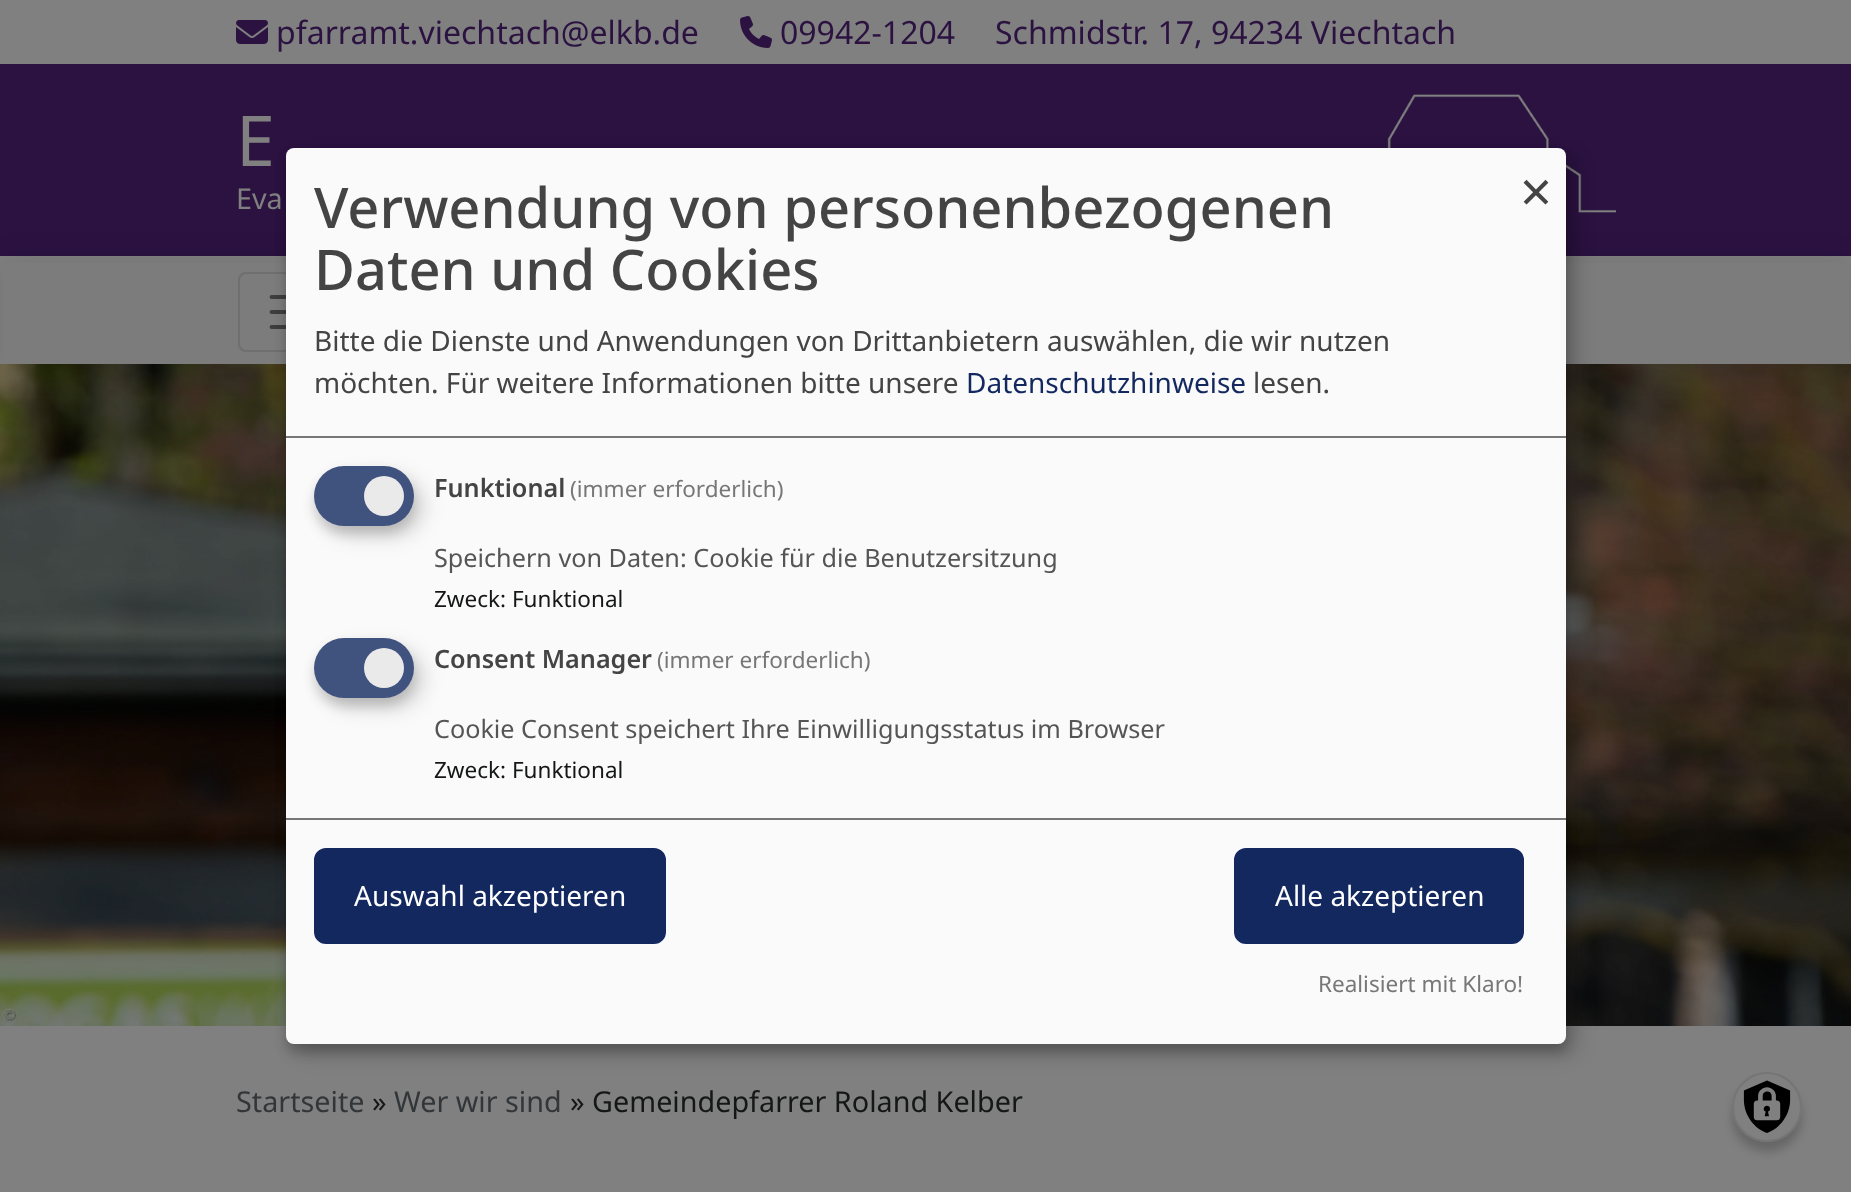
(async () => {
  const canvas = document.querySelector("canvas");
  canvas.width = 1851;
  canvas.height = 1192;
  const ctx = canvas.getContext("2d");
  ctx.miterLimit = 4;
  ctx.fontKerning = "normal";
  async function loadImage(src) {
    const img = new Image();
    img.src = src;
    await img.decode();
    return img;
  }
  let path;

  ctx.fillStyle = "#808080";
  ctx.fillRect(0, 0, 1851, 1192);
  ctx.drawImage(await loadImage("img/1.png"), 236, 20, 32, 24);
  ctx.drawImage(await loadImage("img/2.png"), 740, 16, 32, 32);
  ctx.fillStyle = "#2b1241";
  ctx.fillRect(0, 64, 1851, 192);
  ctx.drawImage(await loadImage("img/3.png"), 1387, 94, 229, 119);
  ctx.drawImage(await loadImage("img/4.png"), 0, 364, 1851, 662);
  ctx.fillStyle = "rgba(0, 0, 0, 0.09)";
  ctx.filter = "blur(15px)";
  ctx.beginPath();
  ctx.rect(0, 260, 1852, 108);
  ctx.fill();
  ctx.filter = "none";
  ctx.fillStyle = "#7c7c7c";
  ctx.fillRect(3, 263, 1846, 101);
  ctx.beginPath();
  ctx.roundRect(239, 273, 110, 78, 7);
  ctx.strokeStyle = "#6f6f6f";
  ctx.lineWidth = 2;
  ctx.stroke();
  path = new Path2D("M271.5 297H316.5M271.5 312H316.5M271.5 327H316.5");
  ctx.strokeStyle = "#3e3e3e";
  ctx.lineWidth = 3.8;
  ctx.lineCap = "round";
  ctx.stroke(path);
  ctx.fillStyle = "rgba(0, 0, 0, 0.19)";
  ctx.filter = "blur(10px)";
  ctx.beginPath();
  ctx.roundRect(296, 158, 1280, 896, 8);
  ctx.fill();
  ctx.filter = "none";
  ctx.fillStyle = "rgba(0, 0, 0, 0.2)";
  ctx.filter = "blur(6px)";
  ctx.beginPath();
  ctx.roundRect(286, 156, 1280, 896, 8);
  ctx.fill();
  ctx.filter = "none";
  ctx.fillStyle = "#fafafa";
  ctx.beginPath();
  ctx.roundRect(286, 148, 1280, 896, 8);
  ctx.fill();
  ctx.fillStyle = "#777777";
  ctx.fillRect(286, 436, 1280, 2);
  ctx.fillStyle = "rgba(0, 0, 0, 0.15)";
  ctx.filter = "blur(10px)";
  ctx.beginPath();
  ctx.roundRect(324, 476, 100, 60, 30);
  ctx.fill();
  ctx.filter = "none";
  ctx.fillStyle = "rgba(50, 50, 50, 0.2)";
  ctx.filter = "blur(6px)";
  ctx.beginPath();
  ctx.roundRect(314, 474, 100, 60, 30);
  ctx.fill();
  ctx.filter = "none";
  ctx.fillStyle = "#40527e";
  ctx.beginPath();
  ctx.roundRect(314, 466, 100, 60, 30);
  ctx.fill();
  ctx.fillStyle = "#eaeaea";
  ctx.beginPath();
  ctx.arc(384, 496, 20, 0, Math.PI * 2);
  ctx.fill();
  ctx.fillStyle = "rgba(0, 0, 0, 0.15)";
  ctx.filter = "blur(10px)";
  ctx.beginPath();
  ctx.roundRect(324, 648, 100, 60, 30);
  ctx.fill();
  ctx.filter = "none";
  ctx.fillStyle = "rgba(50, 50, 50, 0.2)";
  ctx.filter = "blur(6px)";
  ctx.beginPath();
  ctx.roundRect(314, 646, 100, 60, 30);
  ctx.fill();
  ctx.filter = "none";
  ctx.fillStyle = "#40527e";
  ctx.beginPath();
  ctx.roundRect(314, 638, 100, 60, 30);
  ctx.fill();
  ctx.fillStyle = "#eaeaea";
  ctx.beginPath();
  ctx.arc(384, 668, 20, 0, Math.PI * 2);
  ctx.fill();
  ctx.fillStyle = "#777777";
  ctx.fillRect(286, 818, 1280, 2);
  ctx.fillStyle = "#12285f";
  ctx.beginPath();
  ctx.roundRect(317, 851, 346, 90, 9);
  ctx.fill();
  ctx.strokeStyle = "#12285f";
  ctx.lineWidth = 6;
  ctx.stroke();
  ctx.beginPath();
  ctx.roundRect(1237, 851, 284, 90, 9);
  ctx.fill();
  ctx.stroke();
  ctx.fillStyle = "rgba(0, 0, 0, 0.2)";
  ctx.filter = "blur(5px)";
  ctx.beginPath();
  ctx.roundRect(1732, 1082, 70, 70, 35);
  ctx.fill();
  ctx.filter = "none";
  ctx.fillStyle = "#808080";
  ctx.beginPath();
  ctx.arc(1767, 1107, 35, 0, Math.PI * 2);
  ctx.fill();
  ctx.drawImage(await loadImage("img/5.png"), 1743, 1080, 48, 53);
  ctx.beginPath();
  ctx.arc(1767, 1107, 34, 0, Math.PI * 2);
  ctx.strokeStyle = "#757575";
  ctx.lineWidth = 2;
  ctx.stroke();
  ctx.font = "32px Noto Sans";
  ctx.fillStyle = "#2b1241";
  for (const [text, x, y] of [
    ["pfarramt.viechtach@elkb.de", 276, 44],
    ["09942-1204", 780, 44],
    ["Schmidstr. 17, 94234 Viechtach", 995, 44],
  ]) {
    ctx.fillText(text, x, y);
  }
  ctx.font = "70px Noto Sans";
  ctx.fillStyle = "#808080";
  ctx.fillText("E", 236, 166);
  ctx.font = "28.75px Noto Sans";
  ctx.fillText("Eva", 236, 209);
  ctx.fillStyle = "#323639";
  ctx.fillText("Startseite", 236, 1112);
  ctx.fillStyle = "#151616";
  ctx.fillText("»", 372, 1112);
  ctx.fillStyle = "#323639";
  ctx.fillText("Wer wir sind", 394, 1112);
  ctx.fillStyle = "#151616";
  ctx.fillText("» Gemeindepfarrer Roland Kelber", 570, 1112);
  ctx.font = "500 56px Noto Sans";
  ctx.fillStyle = "#444444";
  ctx.fillText("Verwendung von personenbezogenen", 314, 228);
  ctx.fillText("Daten und Cookies", 314, 290);
  ctx.font = "28px Noto Sans";
  ctx.fillText("Bitte die Dienste und Anwendungen von Drittanbietern auswählen, die wir nutzen", 314, 351);
  ctx.fillText("möchten. Für weitere Informationen bitte unsere", 314, 393);
  ctx.fillStyle = "#12285f";
  ctx.fillText("Datenschutzhinweise", 966, 393);
  ctx.fillStyle = "#444444";
  ctx.fillText("lesen.", 1253, 393);
  ctx.font = "56px Noto Sans";
  ctx.fillText("×", 1520, 212);
  ctx.font = "600 25.2px Noto Sans";
  ctx.fillText("Funktional", 434, 497);
  ctx.font = "22.5px Noto Sans";
  ctx.fillStyle = "#777777";
  ctx.fillText("(immer erforderlich)", 570, 497);
  ctx.font = "25.2px Noto Sans";
  ctx.fillStyle = "#555555";
  ctx.fillText("Speichern von Daten: Cookie für die Benutzersitzung", 434, 567);
  ctx.font = "22.5px Noto Sans";
  ctx.fillStyle = "#151616";
  ctx.fillText("Zweck: Funktional", 434, 607);
  ctx.font = "600 25.2px Noto Sans";
  ctx.fillStyle = "#444444";
  ctx.fillText("Consent Manager", 434, 668);
  ctx.font = "22.5px Noto Sans";
  ctx.fillStyle = "#777777";
  ctx.fillText("(immer erforderlich)", 657, 668);
  ctx.font = "25.2px Noto Sans";
  ctx.fillStyle = "#555555";
  ctx.fillText("Cookie Consent speichert Ihre Einwilligungsstatus im Browser", 434, 738);
  ctx.font = "22.5px Noto Sans";
  ctx.fillStyle = "#151616";
  ctx.fillText("Zweck: Funktional", 434, 778);
  ctx.font = "28px Noto Sans";
  ctx.fillStyle = "#ffffff";
  ctx.fillText("Auswahl akzeptieren", 354, 906);
  ctx.fillText("Alle akzeptieren", 1275, 906);
  ctx.font = "22.5px Noto Sans";
  ctx.fillStyle = "#777777";
  ctx.fillText("Realisiert mit Klaro!", 1318, 992);
})();
